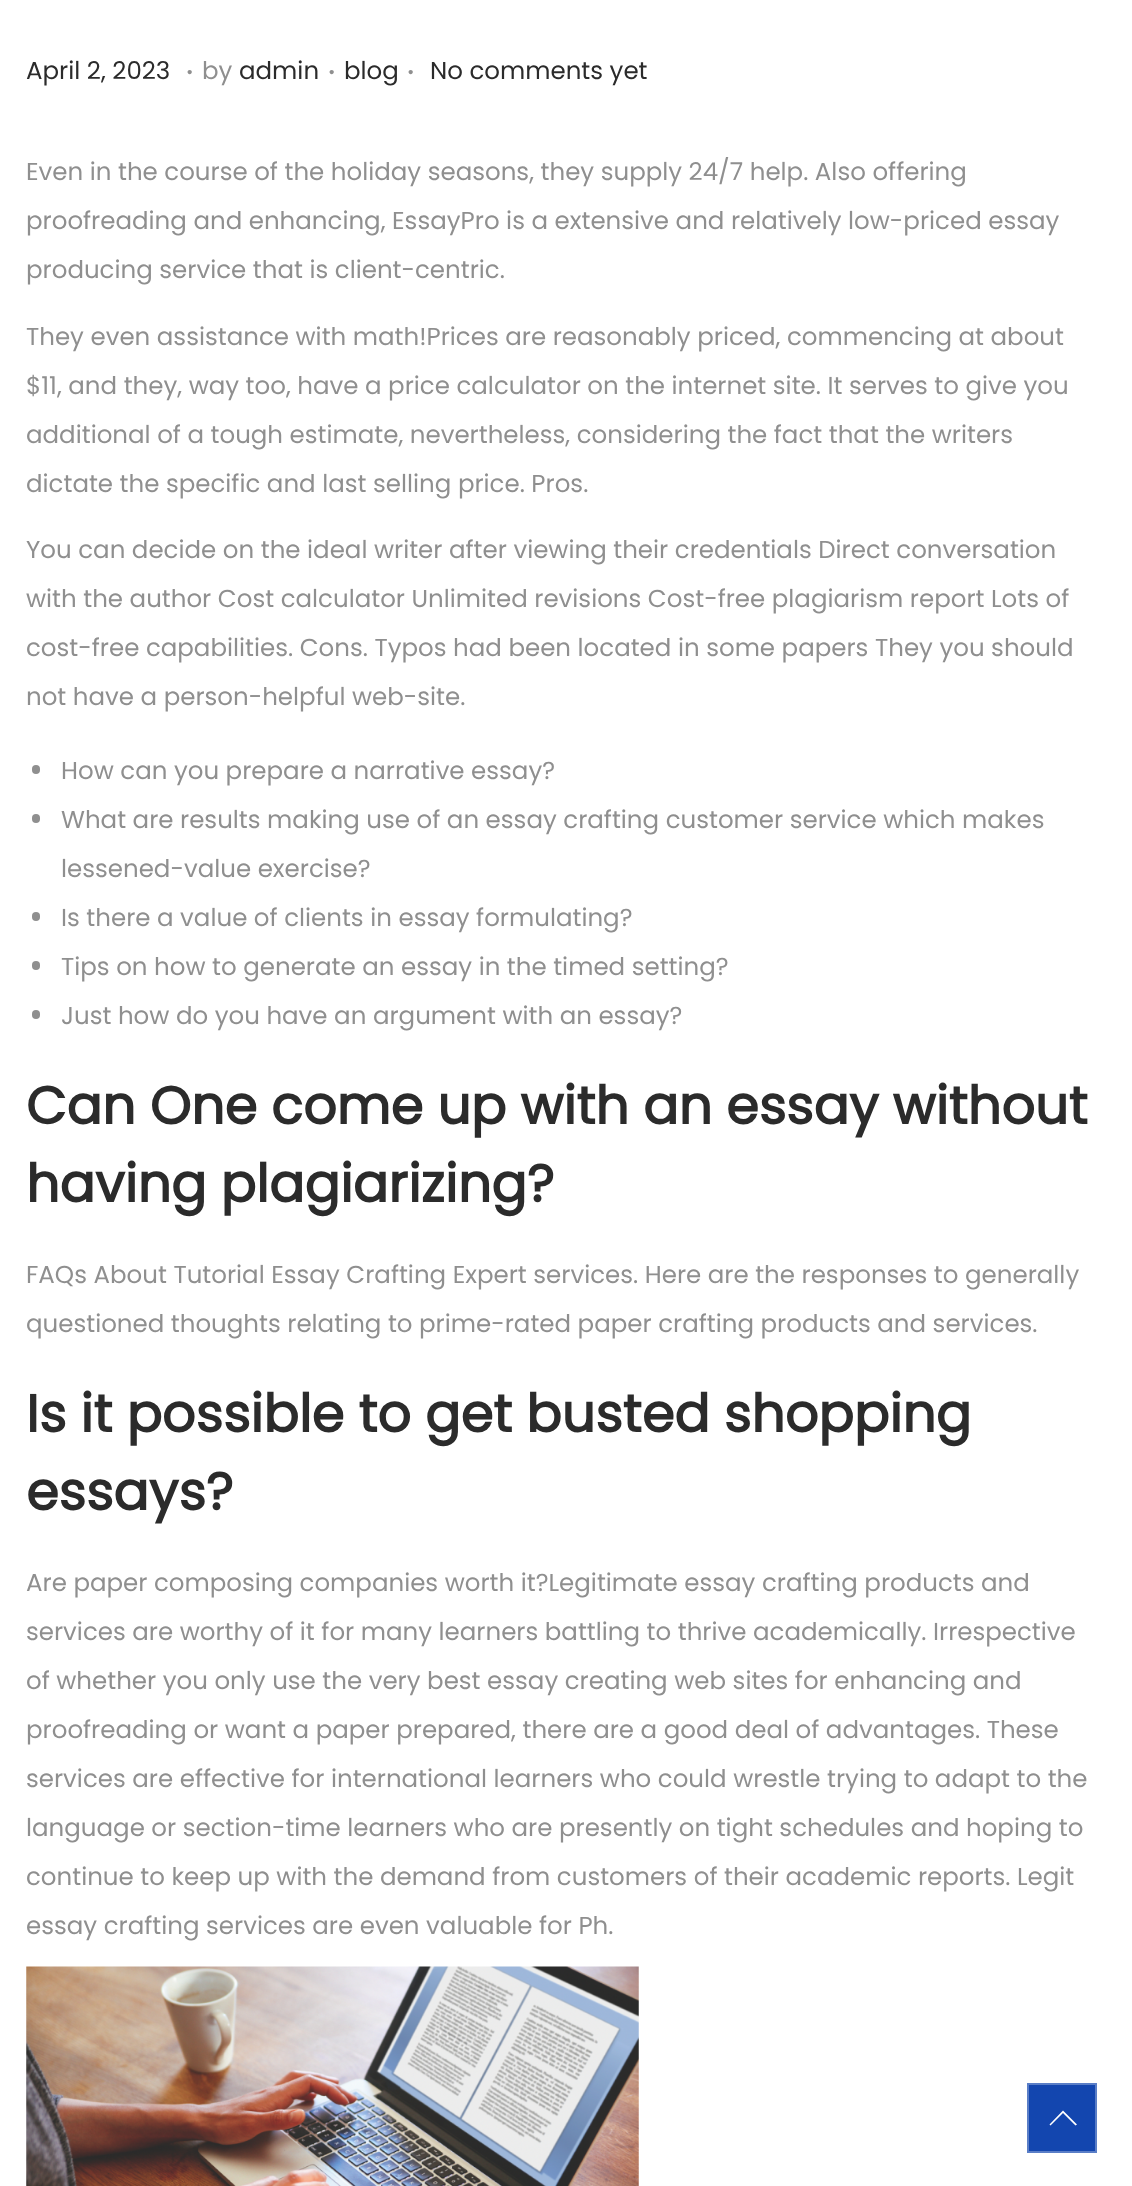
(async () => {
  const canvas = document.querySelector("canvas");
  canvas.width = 1132;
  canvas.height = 2186;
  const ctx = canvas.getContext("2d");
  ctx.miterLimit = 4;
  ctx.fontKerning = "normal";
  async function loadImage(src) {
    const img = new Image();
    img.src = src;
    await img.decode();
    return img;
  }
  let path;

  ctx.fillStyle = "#ffffff";
  ctx.fillRect(0, 0, 1132, 2186);
  ctx.fillStyle = "#8f8f8f";
  ctx.beginPath();
  ctx.roundRect(32, 765, 8, 9, 4);
  ctx.fill();
  ctx.beginPath();
  ctx.roundRect(32, 814, 8, 9, 4);
  ctx.fill();
  ctx.beginPath();
  ctx.roundRect(32, 912, 8, 9, 4);
  ctx.fill();
  ctx.beginPath();
  ctx.roundRect(32, 961, 8, 9, 4);
  ctx.fill();
  ctx.beginPath();
  ctx.roundRect(32, 1010, 8, 9, 4);
  ctx.fill();
  ctx.drawImage(await loadImage("img/1.png"), 26, 1966, 613, 220);
  ctx.fillStyle = "#1346af";
  ctx.beginPath();
  ctx.rect(1028, 2084, 68, 68);
  ctx.fill();
  ctx.strokeStyle = "#5a7ec7";
  ctx.lineWidth = 2;
  ctx.stroke();
  ctx.fillStyle = "#ffffff";
  path = new Path2D("M1077 2124.5L1075.5 2125.5L1063 2113L1050.5 2125.5L1049.5 2124.5L1063 2110.5Z");
  ctx.fill(path);
  ctx.font = "24.5px Poppins";
  ctx.fillStyle = "#2b2b2b";
  ctx.fillText("April 2, 2023", 26, 79);
  ctx.font = "35px Poppins";
  ctx.fillStyle = "#8f8f8f";
  ctx.fillText(".", 186, 74);
  ctx.font = "24.5px Poppins";
  ctx.fillText("by", 202, 79);
  ctx.fillStyle = "#2b2b2b";
  ctx.fillText("admin", 239, 79);
  ctx.font = "35px Poppins";
  ctx.fillStyle = "#8f8f8f";
  ctx.fillText(".", 328, 74);
  ctx.font = "24.5px Poppins";
  ctx.fillStyle = "#2b2b2b";
  ctx.fillText("blog", 344, 79);
  ctx.font = "35px Poppins";
  ctx.fillStyle = "#8f8f8f";
  ctx.fillText(".", 407, 74);
  ctx.font = "24.5px Poppins";
  ctx.fillStyle = "#2b2b2b";
  ctx.fillText("No comments yet", 430, 79);
  ctx.fillStyle = "#8f8f8f";
  for (const [text, x, y] of [
    ["Even in the course of the holiday seasons, they supply 24/7 help. Also offering", 26, 180],
    ["proofreading and enhancing, EssayPro is a extensive and relatively low-priced essay", 26, 229],
    ["producing service that is client-centric.", 26, 278],
    ["They even assistance with math!Prices are reasonably priced, commencing at about", 26, 345],
    ["$11, and they, way too, have a price calculator on the internet site. It serves to give you", 26, 394],
    ["additional of a tough estimate, nevertheless, considering the fact that the writers", 26, 443],
    ["dictate the specific and last selling price. Pros.", 26, 492],
    ["You can decide on the ideal writer after viewing their credentials Direct conversation", 26, 558],
    ["with the author Cost calculator Unlimited revisions Cost-free plagiarism report Lots of", 26, 607],
    ["cost-free capabilities. Cons. Typos had been located in some papers They you should", 26, 656],
    ["not have a person-helpful web-site.", 26, 705],
    ["How can you prepare a narrative essay?", 61, 779],
    ["What are results making use of an essay crafting customer service which makes", 61, 828],
    ["lessened-value exercise?", 61, 877],
    ["Is there a value of clients in essay formulating?", 61, 926],
    ["Tips on how to generate an essay in the timed setting?", 61, 975],
    ["Just how do you have an argument with an essay?", 61, 1024],
  ]) {
    ctx.fillText(text, x, y);
  }
  ctx.font = "bold 52.5px Poppins";
  ctx.fillStyle = "#2b2b2b";
  ctx.fillText("Can One come up with an essay without", 26, 1124);
  ctx.fillText("having plagiarizing?", 26, 1202);
  ctx.font = "24.5px Poppins";
  ctx.fillStyle = "#8f8f8f";
  ctx.fillText("FAQs About Tutorial Essay Crafting Expert services. Here are the responses to generally", 26, 1283);
  ctx.fillText("questioned thoughts relating to prime-rated paper crafting products and services.", 26, 1332);
  ctx.font = "bold 52.5px Poppins";
  ctx.fillStyle = "#2b2b2b";
  ctx.fillText("Is it possible to get busted shopping", 26, 1432);
  ctx.fillText("essays?", 26, 1510);
  ctx.font = "24.5px Poppins";
  ctx.fillStyle = "#8f8f8f";
  for (const [text, x, y] of [
    ["Are paper composing companies worth it?Legitimate essay crafting products and", 26, 1591],
    ["services are worthy of it for many learners battling to thrive academically. Irrespective", 26, 1640],
    ["of whether you only use the very best essay creating web sites for enhancing and", 26, 1689],
    ["proofreading or want a paper prepared, there are a good deal of advantages. These", 26, 1738],
    ["services are effective for international learners who could wrestle trying to adapt to the", 26, 1787],
    ["language or section-time learners who are presently on tight schedules and hoping to", 26, 1836],
    ["continue to keep up with the demand from customers of their academic reports. Legit", 26, 1885],
    ["essay crafting services are even valuable for Ph.", 26, 1934],
  ]) {
    ctx.fillText(text, x, y);
  }
})();
